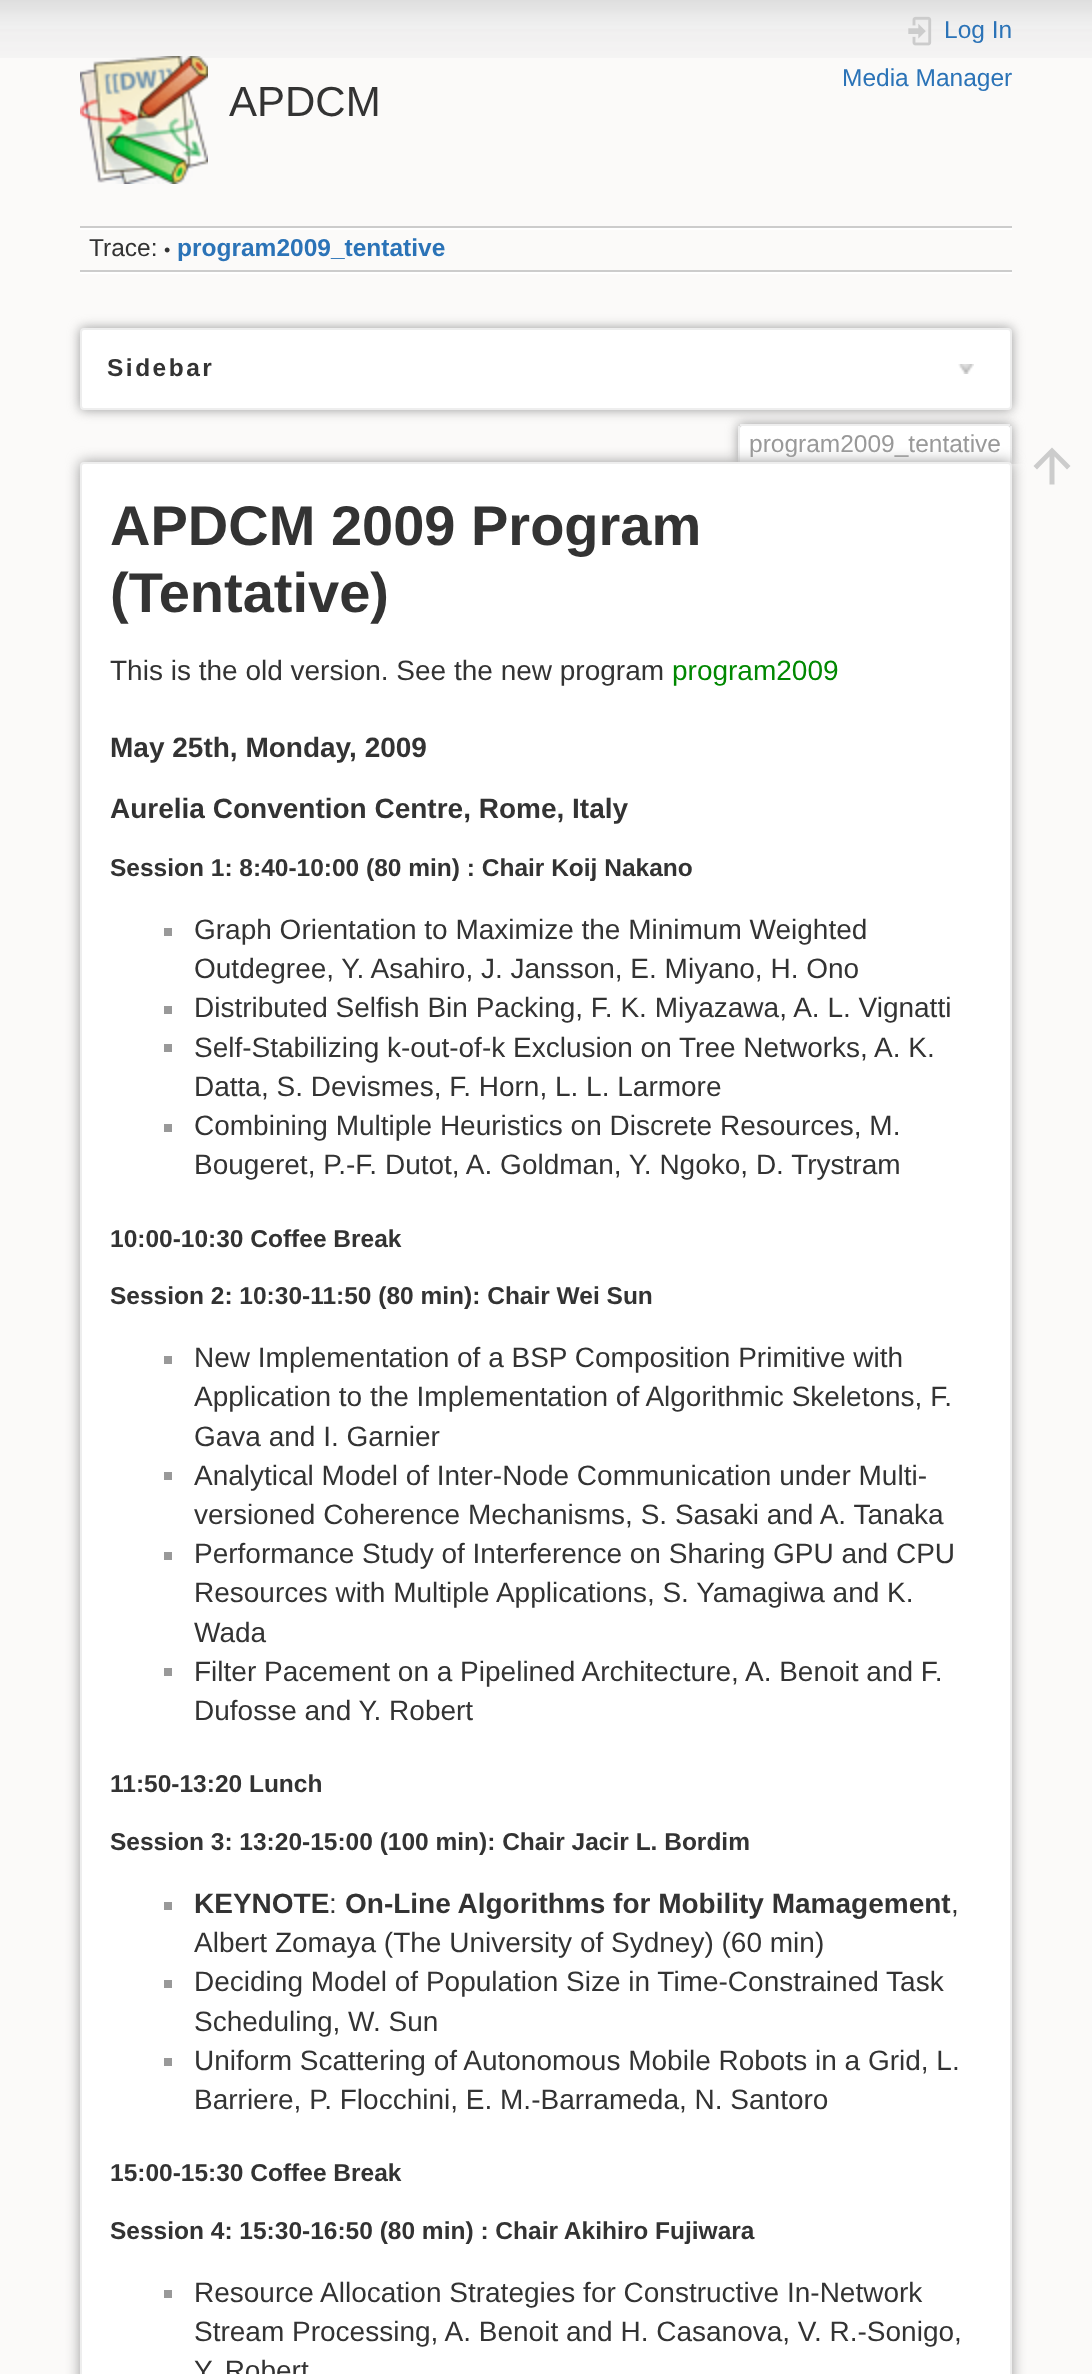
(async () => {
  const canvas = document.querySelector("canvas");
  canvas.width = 1092;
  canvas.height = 2374;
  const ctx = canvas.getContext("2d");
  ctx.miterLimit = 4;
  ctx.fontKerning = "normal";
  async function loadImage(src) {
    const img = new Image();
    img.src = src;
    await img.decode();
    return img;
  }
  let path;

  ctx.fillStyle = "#fbfaf9";
  ctx.fillRect(0, 0, 1092, 2374);
  ctx.drawImage(await loadImage("img/1.png"), 0, 0, 1092, 58);
  ctx.drawImage(await loadImage("img/2.png"), 908, 16, 24, 30);
  ctx.drawImage(await loadImage("img/3.png"), 80, 56, 128, 128);
  for (const [x, y, w, h, color] of [
    [80, 226, 932, 2, "#cccccc"],
    [80, 272, 932, 2, "#ffffff"],
    [80, 228, 932, 2, "#ffffff"],
    [80, 270, 932, 2, "#cccccc"],
  ]) {
    ctx.fillStyle = color;
    ctx.fillRect(x, y, w, h);
  }
  ctx.save();
  ctx.beginPath();
  ctx.rect(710, 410, 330, 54);
  ctx.clip();
  ctx.fillStyle = "#999999";
  ctx.filter = "blur(6px)";
  ctx.beginPath();
  ctx.roundRect(738, 424, 274, 40, 4);
  ctx.fill();
  ctx.filter = "none";
  ctx.restore();
  ctx.fillStyle = "#ffffff";
  ctx.beginPath();
  ctx.roundRect(740, 426, 270, 38, [2, 2, 0, 0]);
  ctx.fill();
  for (const [x, y, w, h, color] of [
    [740, 424, 270, 2, "#eeeeee"],
    [1010, 426, 2, 38, "#eeeeee"],
    [738, 426, 2, 38, "#eeeeee"],
  ]) {
    ctx.fillStyle = color;
    ctx.fillRect(x, y, w, h);
  }
  ctx.fillStyle = "#999999";
  ctx.filter = "blur(6px)";
  ctx.beginPath();
  ctx.roundRect(80, 328, 932, 82, 4);
  ctx.fill();
  ctx.filter = "none";
  ctx.fillStyle = "#ffffff";
  ctx.beginPath();
  ctx.roundRect(81, 329, 930, 80, 3);
  ctx.fill();
  ctx.strokeStyle = "#eeeeee";
  ctx.lineWidth = 2;
  ctx.stroke();
  ctx.drawImage(await loadImage("img/4.png"), 958, 364, 16, 10);
  ctx.fillStyle = "#999999";
  ctx.filter = "blur(7px)";
  ctx.beginPath();
  ctx.roundRect(80, 462, 932, 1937, 4);
  ctx.fill();
  ctx.filter = "none";
  ctx.fillStyle = "#ffffff";
  ctx.beginPath();
  ctx.roundRect(81, 463, 930, 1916, 3);
  ctx.fill();
  ctx.stroke();
  for (const [x, y, w, h, color] of [
    [164, 928, 8, 8, "#999999"],
    [164, 1006, 8, 8, "#999999"],
    [164, 1044, 8, 8, "#999999"],
    [164, 1124, 8, 8, "#999999"],
    [164, 1356, 8, 8, "#999999"],
    [164, 1472, 8, 8, "#999999"],
    [164, 1552, 8, 8, "#999999"],
    [164, 1668, 8, 8, "#999999"],
    [164, 1902, 8, 8, "#999999"],
    [164, 1980, 8, 8, "#999999"],
    [164, 2058, 8, 8, "#999999"],
    [164, 2290, 8, 8, "#999999"],
  ]) {
    ctx.fillStyle = color;
    ctx.fillRect(x, y, w, h);
  }
  ctx.fillStyle = "#cccccc";
  path = new Path2D("M1054.5 484.5H1049.5V456.5L1037 469.5L1033.5 466L1052 447.5L1070.5 466L1067 469.5L1054.5 456.5Z");
  ctx.fill(path);
  ctx.font = "24.5px Liberation Sans";
  ctx.fillStyle = "#2b73b7";
  ctx.fillText("Log In", 944, 38);
  ctx.fillText("Media Manager", 842, 86);
  ctx.font = "42px Liberation Sans";
  ctx.fillStyle = "#333333";
  ctx.fillText("APDCM", 229, 116);
  ctx.font = "24.5px Liberation Sans";
  ctx.fillText("Trace:", 89, 256);
  ctx.font = "18px Liberation Sans";
  ctx.fillText("•", 164, 256);
  ctx.font = "bold 24.5px Liberation Sans";
  ctx.fillStyle = "#2b73b7";
  ctx.fillText("program2009_tentative", 177, 256);
  ctx.letterSpacing = "2.5px";
  ctx.fillStyle = "#333333";
  ctx.fillText("Sidebar", 107, 376);
  ctx.letterSpacing = "0px";
  ctx.font = "24.5px Liberation Sans";
  ctx.fillStyle = "#999999";
  ctx.fillText("program2009_tentative", 749, 452);
  ctx.font = "bold 56px Liberation Sans";
  ctx.fillStyle = "#333333";
  ctx.fillText("APDCM 2009 Program", 110, 545);
  ctx.fillText("(Tentative)", 110, 612);
  ctx.font = "28px Liberation Sans";
  ctx.fillText("This is the old version. See the new program", 110, 680);
  ctx.fillStyle = "#008800";
  ctx.fillText("program2009", 672, 680);
  ctx.font = "bold 28px Liberation Sans";
  ctx.fillStyle = "#333333";
  ctx.fillText("May 25th, Monday, 2009", 110, 757);
  ctx.fillText("Aurelia Convention Centre, Rome, Italy", 110, 818);
  ctx.font = "bold 24.5px Liberation Sans";
  ctx.fillText("Session 1: 8:40-10:00 (80 min) : Chair Koij Nakano", 110, 876);
  ctx.font = "28px Liberation Sans";
  for (const [text, x, y] of [
    ["Graph Orientation to Maximize the Minimum Weighted", 194, 939],
    ["Outdegree, Y. Asahiro, J. Jansson, E. Miyano, H. Ono", 194, 978],
    ["Distributed Selfish Bin Packing, F. K. Miyazawa, A. L. Vignatti", 194, 1017],
    ["Self-Stabilizing k-out-of-k Exclusion on Tree Networks, A. K.", 194, 1057],
    ["Datta, S. Devismes, F. Horn, L. L. Larmore", 194, 1096],
    ["Combining Multiple Heuristics on Discrete Resources, M.", 194, 1135],
    ["Bougeret, P.-F. Dutot, A. Goldman, Y. Ngoko, D. Trystram", 194, 1174],
  ]) {
    ctx.fillText(text, x, y);
  }
  ctx.font = "bold 24.5px Liberation Sans";
  ctx.fillText("10:00-10:30 Coffee Break", 110, 1247);
  ctx.fillText("Session 2: 10:30-11:50 (80 min): Chair Wei Sun", 110, 1304);
  ctx.font = "28px Liberation Sans";
  for (const [text, x, y] of [
    ["New Implementation of a BSP Composition Primitive with", 194, 1367],
    ["Application to the Implementation of Algorithmic Skeletons, F.", 194, 1406],
    ["Gava and I. Garnier", 194, 1446],
    ["Analytical Model of Inter-Node Communication under Multi-", 194, 1485],
    ["versioned Coherence Mechanisms, S. Sasaki and A. Tanaka", 194, 1524],
    ["Performance Study of Interference on Sharing GPU and CPU", 194, 1563],
    ["Resources with Multiple Applications, S. Yamagiwa and K.", 194, 1602],
    ["Wada", 194, 1642],
    ["Filter Pacement on a Pipelined Architecture, A. Benoit and F.", 194, 1681],
    ["Dufosse and Y. Robert", 194, 1720],
  ]) {
    ctx.fillText(text, x, y);
  }
  ctx.font = "bold 24.5px Liberation Sans";
  ctx.fillText("11:50-13:20 Lunch", 110, 1792);
  ctx.fillText("Session 3: 13:20-15:00 (100 min): Chair Jacir L. Bordim", 110, 1850);
  ctx.font = "bold 28px Liberation Sans";
  ctx.fillText("KEYNOTE", 194, 1913);
  ctx.font = "28px Liberation Sans";
  ctx.fillText(":", 329, 1913);
  ctx.font = "bold 28px Liberation Sans";
  ctx.fillText("On-Line Algorithms for Mobility Mamagement", 345, 1913);
  ctx.font = "28px Liberation Sans";
  for (const [text, x, y] of [
    [",", 951, 1913],
    ["Albert Zomaya (The University of Sydney) (60 min)", 194, 1952],
    ["Deciding Model of Population Size in Time-Constrained Task", 194, 1991],
    ["Scheduling, W. Sun", 194, 2031],
    ["Uniform Scattering of Autonomous Mobile Robots in a Grid, L.", 194, 2070],
    ["Barriere, P. Flocchini, E. M.-Barrameda, N. Santoro", 194, 2109],
  ]) {
    ctx.fillText(text, x, y);
  }
  ctx.font = "bold 24.5px Liberation Sans";
  ctx.fillText("15:00-15:30 Coffee Break", 110, 2181);
  ctx.fillText("Session 4: 15:30-16:50 (80 min) : Chair Akihiro Fujiwara", 110, 2239);
  ctx.font = "28px Liberation Sans";
  for (const [text, x, y] of [
    ["Resource Allocation Strategies for Constructive In-Network", 194, 2302],
    ["Stream Processing, A. Benoit and H. Casanova, V. R.-Sonigo,", 194, 2341],
    ["Y. Robert", 194, 2380],
  ]) {
    ctx.fillText(text, x, y);
  }
})();
